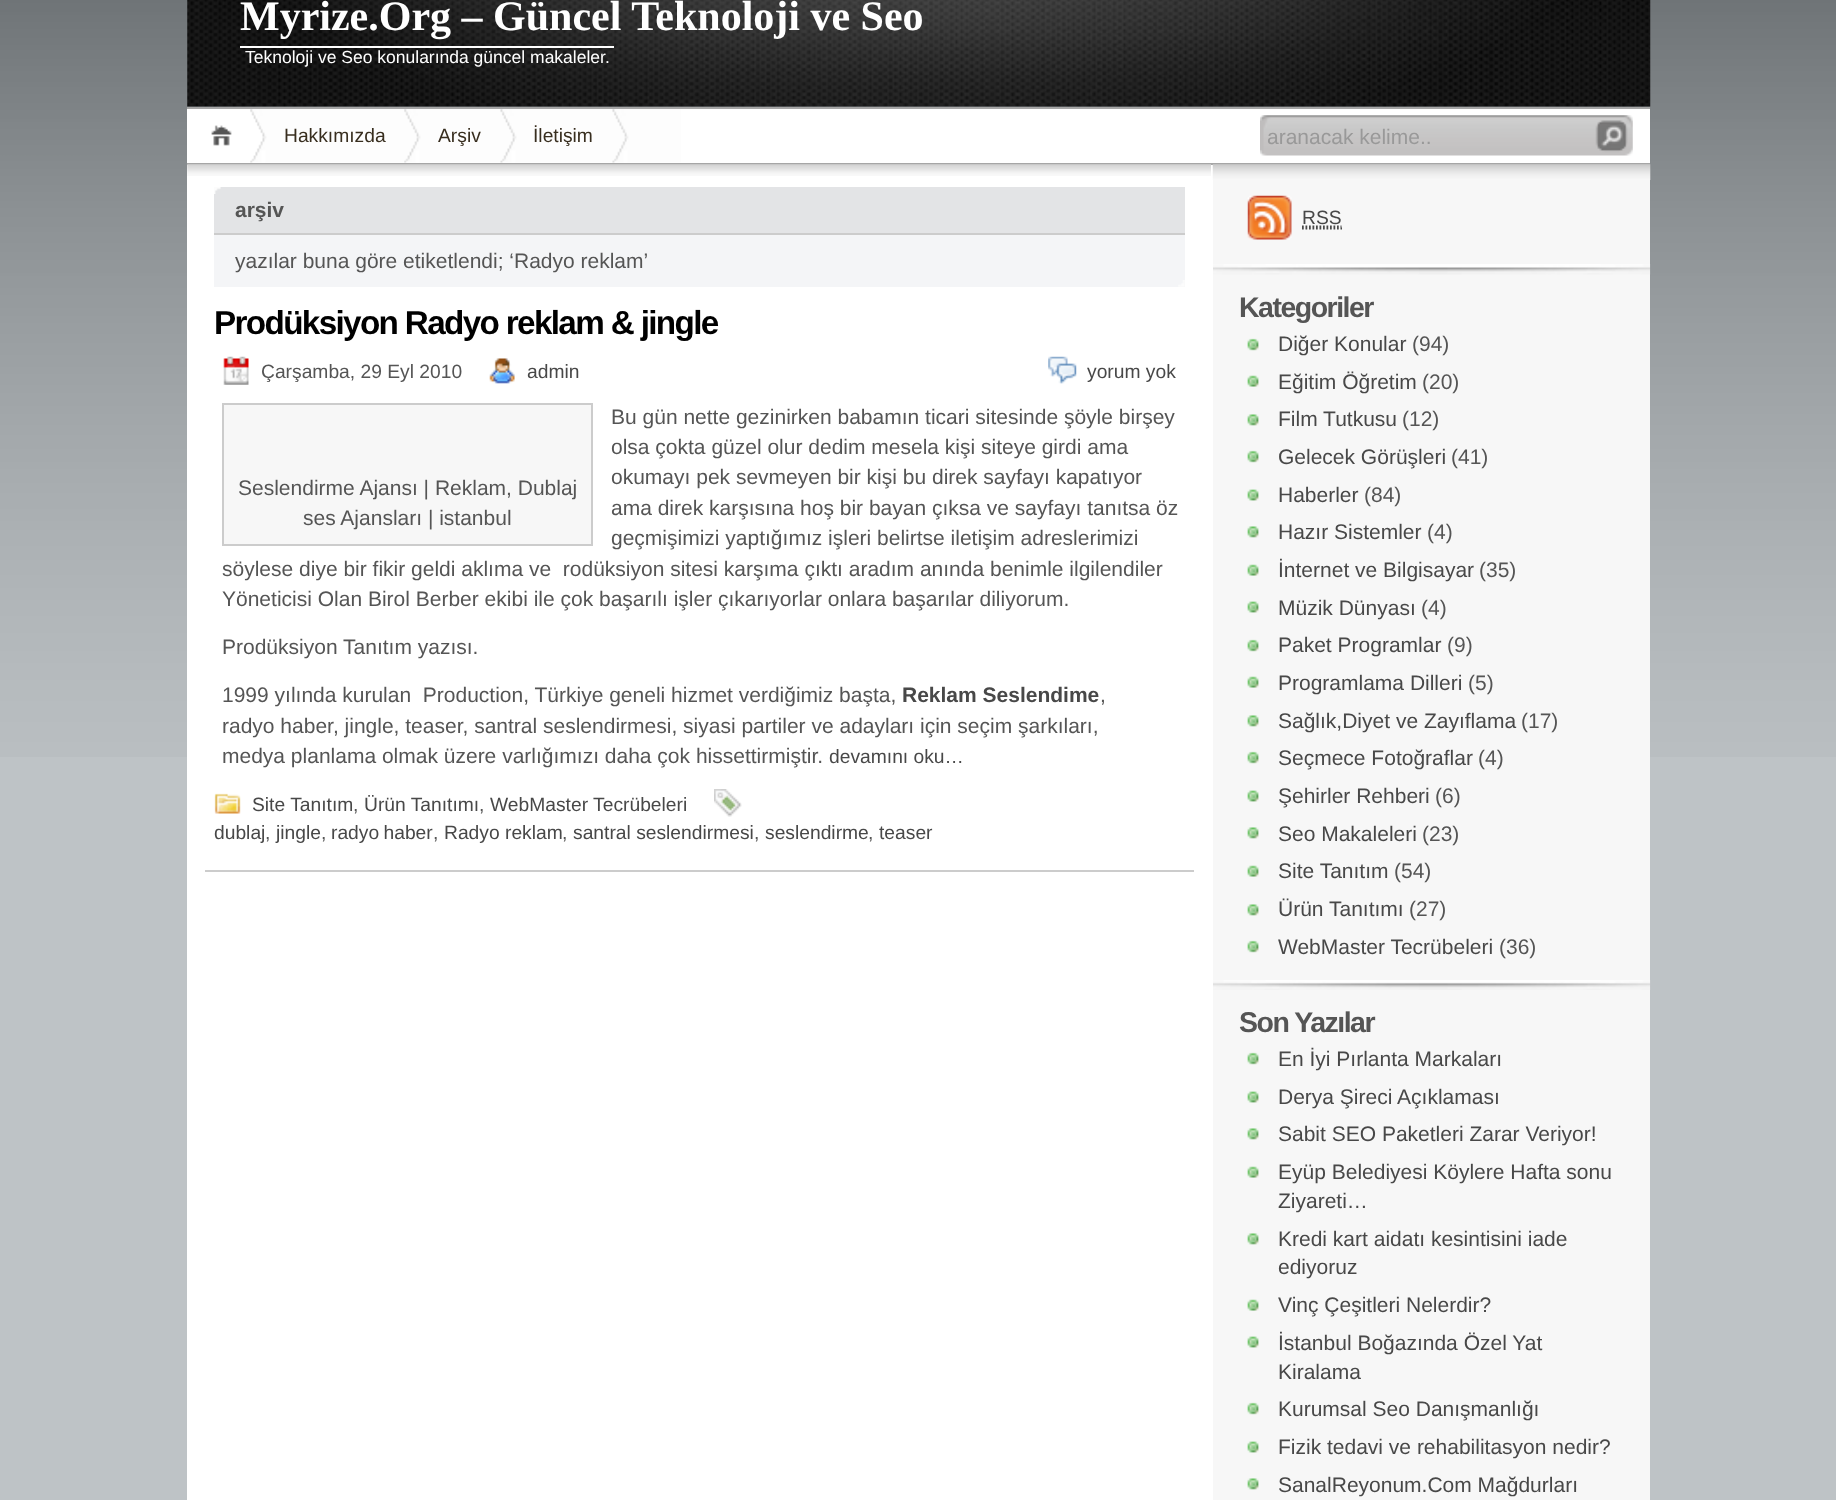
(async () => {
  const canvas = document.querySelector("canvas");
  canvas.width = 1836;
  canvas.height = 1500;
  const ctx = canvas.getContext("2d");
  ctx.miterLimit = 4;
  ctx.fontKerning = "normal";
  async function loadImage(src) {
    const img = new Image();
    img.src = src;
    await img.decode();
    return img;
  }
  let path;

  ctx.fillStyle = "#bec3c6";
  ctx.fillRect(0, 0, 1836, 1500);
  ctx.drawImage(await loadImage("img/1.png"), 0, 0, 1836, 757);
  ctx.drawImage(await loadImage("img/2.png"), 187, 0, 1464, 107);
  for (const [x, y, w, h, color] of [
    [187, 107, 1463, 2, "#a6a6a6"],
    [240, 46, 374, 2, "#ffffff"],
    [187, 109, 1463, 54, "#ffffff"],
    [187, 163, 1463, 2, "#a6a6a6"],
  ]) {
    ctx.fillStyle = color;
    ctx.fillRect(x, y, w, h);
  }
  ctx.drawImage(await loadImage("img/3.png"), 187, 109, 76, 37);
  ctx.drawImage(await loadImage("img/4.png"), 250, 109, 170, 54);
  ctx.drawImage(await loadImage("img/5.png"), 404, 109, 113, 54);
  ctx.drawImage(await loadImage("img/6.png"), 500, 109, 129, 54);
  ctx.drawImage(await loadImage("img/7.png"), 612, 109, 69, 54);
  ctx.drawImage(await loadImage("img/8.png"), 1260, 115, 373, 41);
  ctx.fillStyle = "#ffffff";
  ctx.fillRect(187, 165, 1026, 1335);
  ctx.drawImage(await loadImage("img/9.png"), 187, 164, 1024, 12);
  ctx.fillStyle = "#e3e4e6";
  ctx.fillRect(214, 187, 971, 46);
  ctx.drawImage(await loadImage("img/10.png"), 214, 187, 7, 7);
  ctx.fillStyle = "#cccccc";
  ctx.fillRect(214, 233, 971, 2);
  ctx.fillStyle = "#f4f5f7";
  ctx.fillRect(214, 235, 971, 52);
  ctx.drawImage(await loadImage("img/11.png"), 1178, 280, 7, 7);
  ctx.drawImage(await loadImage("img/12.png"), 223, 356, 26, 29);
  ctx.drawImage(await loadImage("img/13.png"), 489, 358, 26, 26);
  ctx.drawImage(await loadImage("img/14.png"), 1048, 356, 29, 28);
  ctx.fillStyle = "#f7f7f7";
  ctx.beginPath();
  ctx.rect(223, 404, 369, 141);
  ctx.fill();
  ctx.strokeStyle = "#cccccc";
  ctx.lineWidth = 2;
  ctx.stroke();
  ctx.drawImage(await loadImage("img/15.png"), 214, 793, 27, 21);
  ctx.drawImage(await loadImage("img/16.png"), 714, 789, 28, 28);
  ctx.fillStyle = "#cccccc";
  ctx.fillRect(205, 870, 989, 2);
  ctx.fillStyle = "#f7f7f7";
  ctx.fillRect(1213, 180, 437, 1320);
  ctx.drawImage(await loadImage("img/17.png"), 1212, 164, 439, 16);
  ctx.drawImage(await loadImage("img/18.png"), 1213, 264, 438, 11);
  ctx.drawImage(await loadImage("img/19.png"), 1247, 195, 45, 45);
  path = new Path2D("M1302 228.5H1342M1302 226.5H1341.5");
  ctx.strokeStyle = "#484848";
  ctx.lineWidth = 1.8;
  ctx.setLineDash([1.75, 1.75]);
  ctx.stroke(path);
  ctx.drawImage(await loadImage("img/20.png"), 1213, 980, 438, 10);
  ctx.drawImage(await loadImage("img/21.png"), 1247, 338, 12, 13);
  ctx.drawImage(await loadImage("img/22.png"), 1247, 375, 12, 12);
  ctx.drawImage(await loadImage("img/23.png"), 1247, 414, 12, 12);
  ctx.drawImage(await loadImage("img/21.png"), 1247, 450, 12, 13);
  ctx.drawImage(await loadImage("img/24.png"), 1247, 489, 12, 12);
  ctx.drawImage(await loadImage("img/23.png"), 1247, 526, 12, 12);
  ctx.drawImage(await loadImage("img/22.png"), 1247, 564, 12, 12);
  ctx.drawImage(await loadImage("img/24.png"), 1247, 601, 12, 12);
  ctx.drawImage(await loadImage("img/21.png"), 1247, 639, 12, 13);
  ctx.drawImage(await loadImage("img/22.png"), 1247, 676, 12, 12);
  ctx.drawImage(await loadImage("img/23.png"), 1247, 715, 12, 12);
  ctx.drawImage(await loadImage("img/21.png"), 1247, 751, 12, 13);
  ctx.drawImage(await loadImage("img/24.png"), 1247, 790, 12, 12);
  ctx.drawImage(await loadImage("img/23.png"), 1247, 827, 12, 12);
  ctx.drawImage(await loadImage("img/22.png"), 1247, 865, 12, 12);
  ctx.drawImage(await loadImage("img/23.png"), 1247, 904, 12, 12);
  ctx.drawImage(await loadImage("img/21.png"), 1247, 940, 12, 13);
  ctx.drawImage(await loadImage("img/21.png"), 1247, 1052, 12, 13);
  ctx.drawImage(await loadImage("img/24.png"), 1247, 1091, 12, 12);
  ctx.drawImage(await loadImage("img/23.png"), 1247, 1128, 12, 12);
  ctx.drawImage(await loadImage("img/22.png"), 1247, 1166, 12, 12);
  ctx.drawImage(await loadImage("img/23.png"), 1247, 1233, 12, 12);
  ctx.drawImage(await loadImage("img/22.png"), 1247, 1299, 12, 12);
  ctx.drawImage(await loadImage("img/24.png"), 1247, 1336, 12, 12);
  ctx.drawImage(await loadImage("img/21.png"), 1247, 1402, 12, 13);
  ctx.drawImage(await loadImage("img/24.png"), 1247, 1441, 12, 12);
  ctx.drawImage(await loadImage("img/23.png"), 1247, 1478, 12, 12);
  ctx.font = "bold 42px Liberation Serif";
  ctx.fillStyle = "#ffffff";
  ctx.fillText("Myrize.Org – Güncel Teknoloji ve Seo", 240, 30);
  ctx.font = "17.5px Liberation Sans";
  ctx.fillText("Teknoloji ve Seo konularında güncel makaleler.", 245, 63);
  ctx.font = "19.25px Liberation Sans";
  ctx.fillStyle = "#382e1f";
  for (const [text, x, y] of [
    ["Hakkımızda", 284, 142],
    ["Arşiv", 438, 142],
    ["İletişim", 533, 142],
  ]) {
    ctx.fillText(text, x, y);
  }
  ctx.font = "21px Liberation Sans";
  ctx.fillStyle = "#999999";
  ctx.fillText("aranacak kelime..", 1267, 144);
  ctx.font = "bold 21px Liberation Sans";
  ctx.fillStyle = "#555555";
  ctx.fillText("arşiv", 235, 217);
  ctx.font = "21px Liberation Sans";
  ctx.fillText("yazılar buna göre etiketlendi; ‘Radyo reklam’", 235, 268);
  ctx.letterSpacing = "-1.65px";
  ctx.font = "bold 33.25px Liberation Sans";
  ctx.fillStyle = "#000000";
  ctx.fillText("Prodüksiyon Radyo reklam & jingle", 214, 334);
  ctx.letterSpacing = "0px";
  ctx.font = "19.25px Liberation Sans";
  ctx.fillStyle = "#555555";
  ctx.fillText("Çarşamba, 29 Eyl 2010", 261, 378);
  ctx.fillStyle = "#484848";
  ctx.fillText("admin", 527, 378);
  ctx.fillText("yorum yok", 1087, 378);
  ctx.font = "21px Liberation Sans";
  ctx.fillStyle = "#555555";
  for (const [text, x, y] of [
    ["Bu gün nette gezinirken babamın ticari sitesinde şöyle birşey", 611, 424],
    ["olsa çokta güzel olur dedim mesela kişi siteye girdi ama", 611, 454],
    ["okumayı pek sevmeyen bir kişi bu direk sayfayı kapatıyor", 611, 484],
    ["ama direk karşısına hoş bir bayan çıksa ve sayfayı tanıtsa öz", 611, 515],
    ["geçmişimizi yaptığımız işleri belirtse iletişim adreslerimizi", 611, 545],
    ["söylese diye bir fikir geldi aklıma ve  rodüksiyon sitesi karşıma çıktı aradım anında benimle ilgilendiler", 222, 576],
    ["Yöneticisi Olan Birol Berber ekibi ile çok başarılı işler çıkarıyorlar onlara başarılar diliyorum.", 222, 606],
    ["Seslendirme Ajansı | Reklam, Dublaj", 238, 495],
    ["ses Ajansları | istanbul", 303, 525],
    ["Prodüksiyon Tanıtım yazısı.", 222, 654],
    ["1999 yılında kurulan  Production, Türkiye geneli hizmet verdiğimiz başta,", 222, 702],
  ]) {
    ctx.fillText(text, x, y);
  }
  ctx.font = "bold 21px Liberation Sans";
  ctx.fillStyle = "#484848";
  ctx.fillText("Reklam Seslendime", 902, 702);
  ctx.font = "21px Liberation Sans";
  ctx.fillStyle = "#555555";
  for (const [text, x, y] of [
    [",", 1100, 702],
    ["radyo haber, jingle, teaser, santral seslendirmesi, siyasi partiler ve adayları için seçim şarkıları,", 222, 733],
    ["medya planlama olmak üzere varlığımızı daha çok hissettirmiştir.", 222, 763],
  ]) {
    ctx.fillText(text, x, y);
  }
  ctx.font = "19.25px Liberation Sans";
  ctx.fillStyle = "#484848";
  ctx.fillText("devamını oku…", 829, 763);
  ctx.fillText("Site Tanıtım", 252, 811);
  ctx.fillStyle = "#555555";
  ctx.fillText(",", 353, 811);
  ctx.fillStyle = "#484848";
  ctx.fillText("Ürün Tanıtımı", 364, 811);
  ctx.fillStyle = "#555555";
  ctx.fillText(",", 479, 811);
  ctx.fillStyle = "#484848";
  ctx.fillText("WebMaster Tecrübeleri", 490, 811);
  ctx.fillText("dublaj", 214, 839);
  ctx.fillStyle = "#555555";
  ctx.fillText(",", 265, 839);
  ctx.fillStyle = "#484848";
  ctx.fillText("jingle", 276, 839);
  ctx.fillStyle = "#555555";
  ctx.fillText(",", 321, 839);
  ctx.wordSpacing = "-1px";
  ctx.fillStyle = "#484848";
  ctx.fillText("radyo haber", 331, 839);
  ctx.wordSpacing = "0px";
  ctx.fillStyle = "#555555";
  ctx.fillText(",", 433, 839);
  ctx.fillStyle = "#484848";
  ctx.fillText("Radyo reklam", 444, 839);
  ctx.fillStyle = "#555555";
  ctx.fillText(",", 562, 839);
  ctx.fillStyle = "#484848";
  ctx.fillText("santral seslendirmesi", 573, 839);
  ctx.fillStyle = "#555555";
  ctx.fillText(",", 754, 839);
  ctx.fillStyle = "#484848";
  ctx.fillText("seslendirme", 765, 839);
  ctx.fillStyle = "#555555";
  ctx.fillText(",", 868, 839);
  ctx.fillStyle = "#484848";
  ctx.fillText("teaser", 879, 839);
  ctx.fillText("RSS", 1302, 224);
  ctx.letterSpacing = "-1.5px";
  ctx.font = "bold 28.5px Liberation Sans";
  ctx.fillStyle = "#555555";
  ctx.fillText("Kategoriler", 1239, 317);
  ctx.letterSpacing = "0px";
  ctx.font = "21px Liberation Sans";
  ctx.fillStyle = "#484848";
  ctx.fillText("Diğer Konular", 1278, 351);
  ctx.fillStyle = "#555555";
  ctx.fillText("(94)", 1412, 351);
  ctx.fillStyle = "#484848";
  ctx.fillText("Eğitim Öğretim", 1278, 389);
  ctx.fillStyle = "#555555";
  ctx.fillText("(20)", 1422, 389);
  ctx.fillStyle = "#484848";
  ctx.fillText("Film Tutkusu", 1278, 426);
  ctx.fillStyle = "#555555";
  ctx.fillText("(12)", 1402, 426);
  ctx.fillStyle = "#484848";
  ctx.fillText("Gelecek Görüşleri", 1278, 464);
  ctx.fillStyle = "#555555";
  ctx.fillText("(41)", 1451, 464);
  ctx.fillStyle = "#484848";
  ctx.fillText("Haberler", 1278, 502);
  ctx.fillStyle = "#555555";
  ctx.fillText("(84)", 1364, 502);
  ctx.fillStyle = "#484848";
  ctx.fillText("Hazır Sistemler", 1278, 539);
  ctx.fillStyle = "#555555";
  ctx.fillText("(4)", 1427, 539);
  ctx.fillStyle = "#484848";
  ctx.fillText("İnternet ve Bilgisayar", 1278, 577);
  ctx.fillStyle = "#555555";
  ctx.fillText("(35)", 1479, 577);
  ctx.fillStyle = "#484848";
  ctx.fillText("Müzik Dünyası", 1278, 615);
  ctx.fillStyle = "#555555";
  ctx.fillText("(4)", 1421, 615);
  ctx.fillStyle = "#484848";
  ctx.fillText("Paket Programlar", 1278, 652);
  ctx.fillStyle = "#555555";
  ctx.fillText("(9)", 1447, 652);
  ctx.fillStyle = "#484848";
  ctx.fillText("Programlama Dilleri", 1278, 690);
  ctx.fillStyle = "#555555";
  ctx.fillText("(5)", 1468, 690);
  ctx.fillStyle = "#484848";
  ctx.fillText("Sağlık,Diyet ve Zayıflama", 1278, 728);
  ctx.fillStyle = "#555555";
  ctx.fillText("(17)", 1521, 728);
  ctx.fillStyle = "#484848";
  ctx.fillText("Seçmece Fotoğraflar", 1278, 765);
  ctx.fillStyle = "#555555";
  ctx.fillText("(4)", 1478, 765);
  ctx.fillStyle = "#484848";
  ctx.fillText("Şehirler Rehberi", 1278, 803);
  ctx.fillStyle = "#555555";
  ctx.fillText("(6)", 1435, 803);
  ctx.fillStyle = "#484848";
  ctx.fillText("Seo Makaleleri", 1278, 841);
  ctx.fillStyle = "#555555";
  ctx.fillText("(23)", 1422, 841);
  ctx.fillStyle = "#484848";
  ctx.fillText("Site Tanıtım", 1278, 878);
  ctx.fillStyle = "#555555";
  ctx.fillText("(54)", 1394, 878);
  ctx.fillStyle = "#484848";
  ctx.fillText("Ürün Tanıtımı", 1278, 916);
  ctx.fillStyle = "#555555";
  ctx.fillText("(27)", 1409, 916);
  ctx.fillStyle = "#484848";
  ctx.fillText("WebMaster Tecrübeleri", 1278, 954);
  ctx.fillStyle = "#555555";
  ctx.fillText("(36)", 1499, 954);
  ctx.letterSpacing = "-1.5px";
  ctx.font = "bold 28.5px Liberation Sans";
  ctx.fillText("Son Yazılar", 1239, 1032);
  ctx.letterSpacing = "0px";
  ctx.font = "21px Liberation Sans";
  ctx.fillStyle = "#484848";
  for (const [text, x, y] of [
    ["En İyi Pırlanta Markaları", 1278, 1066],
    ["Derya Şireci Açıklaması", 1278, 1104],
    ["Sabit SEO Paketleri Zarar Veriyor!", 1278, 1141],
    ["Eyüp Belediyesi Köylere Hafta sonu", 1278, 1179],
    ["Ziyareti…", 1278, 1208],
    ["Kredi kart aidatı kesintisini iade", 1278, 1246],
    ["ediyoruz", 1278, 1274],
    ["Vinç Çeşitleri Nelerdir?", 1278, 1312],
    ["İstanbul Boğazında Özel Yat", 1278, 1350],
    ["Kiralama", 1278, 1379],
    ["Kurumsal Seo Danışmanlığı", 1278, 1416],
    ["Fizik tedavi ve rehabilitasyon nedir?", 1278, 1454],
    ["SanalReyonum.Com Mağdurları", 1278, 1492],
  ]) {
    ctx.fillText(text, x, y);
  }
})();
